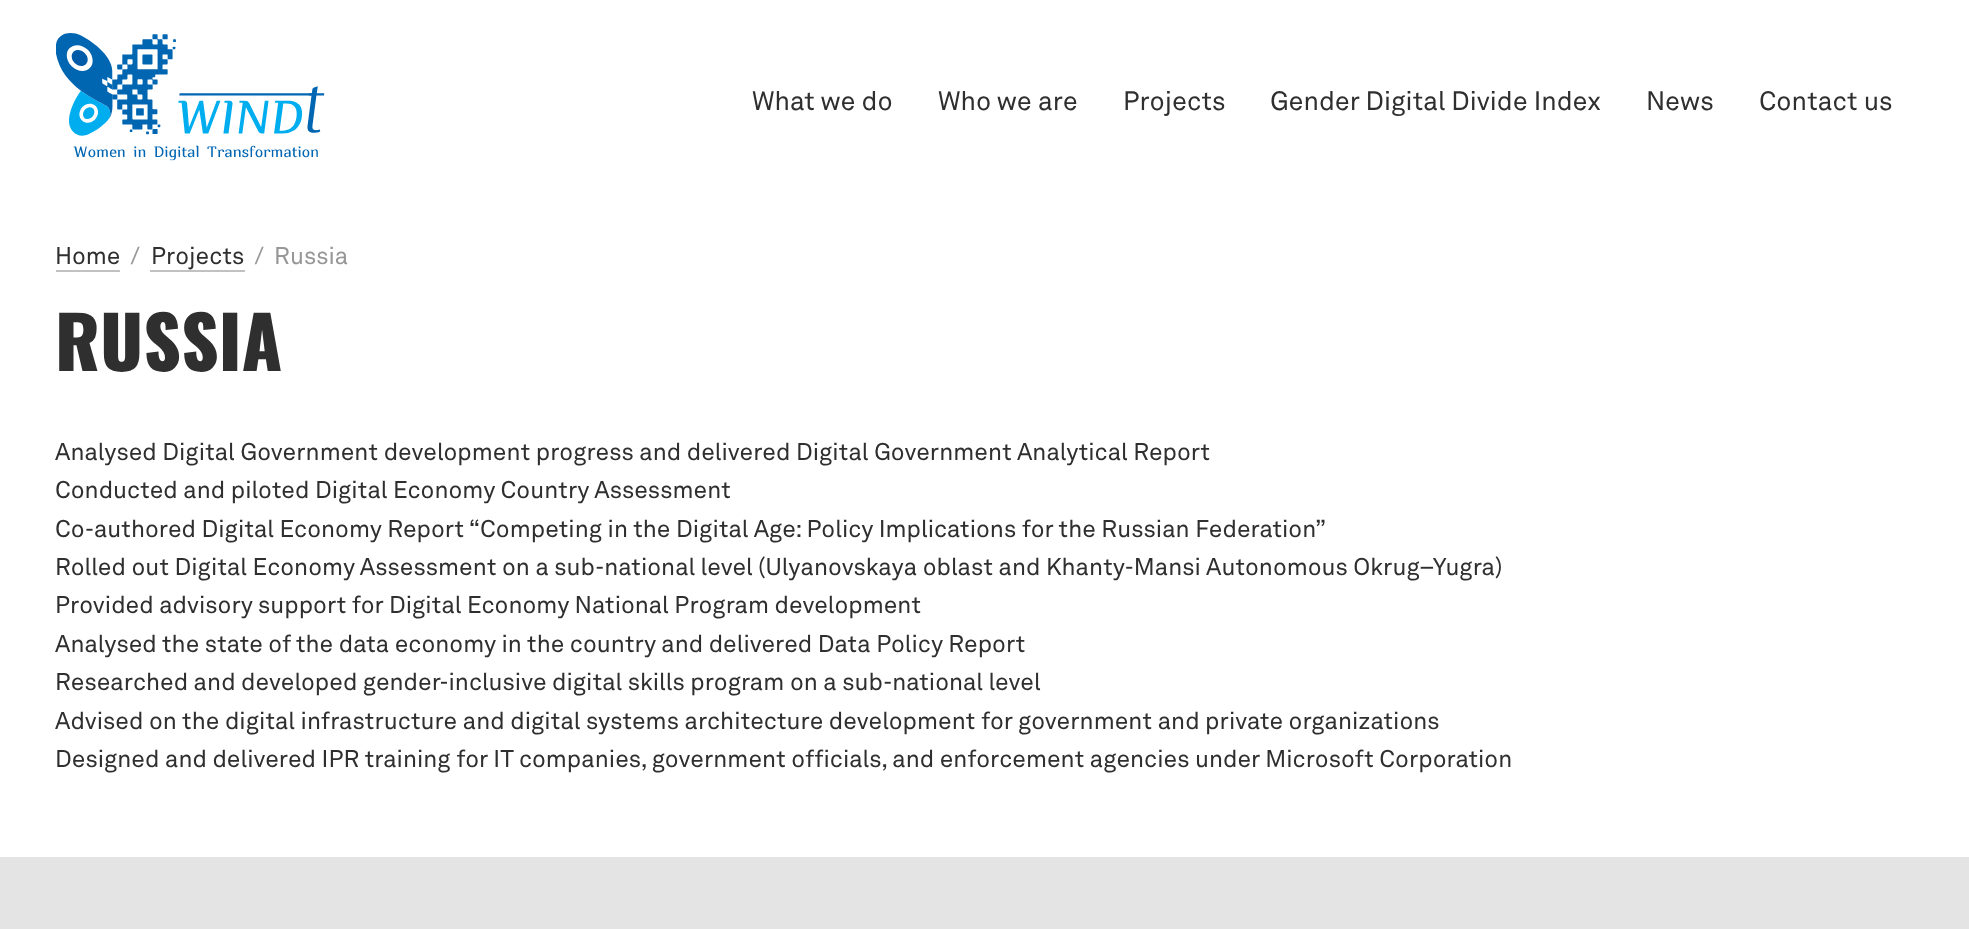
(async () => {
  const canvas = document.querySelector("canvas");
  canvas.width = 1969;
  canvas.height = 929;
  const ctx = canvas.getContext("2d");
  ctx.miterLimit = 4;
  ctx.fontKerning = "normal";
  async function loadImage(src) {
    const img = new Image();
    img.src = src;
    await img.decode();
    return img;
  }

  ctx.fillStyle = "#ffffff";
  ctx.fillRect(0, 0, 1969, 929);
  ctx.drawImage(await loadImage("img/1.png"), 56, 33, 269, 128);
  for (const [x, y, w, h, color] of [
    [56, 270, 64, 2, "#c1c1c1"],
    [150, 270, 95, 2, "#c1c1c1"],
    [0, 857, 1969, 72, "#e4e4e4"],
  ]) {
    ctx.fillStyle = color;
    ctx.fillRect(x, y, w, h);
  }
  ctx.font = "26.4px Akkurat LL";
  ctx.fillStyle = "#2f2f2f";
  for (const [text, x, y] of [
    ["What we do", 752, 110],
    ["Who we are", 938, 110],
    ["Projects", 1123, 110],
    ["Gender Digital Divide Index", 1270, 110],
    ["News", 1646, 110],
    ["Contact us", 1759, 110],
  ]) {
    ctx.fillText(text, x, y);
  }
  ctx.font = "24px Akkurat LL";
  ctx.fillText("Home", 55, 264);
  ctx.fillStyle = "#979797";
  ctx.fillText("/", 130, 264);
  ctx.fillStyle = "#2f2f2f";
  ctx.fillText("Projects", 151, 264);
  ctx.fillStyle = "#979797";
  ctx.fillText("/", 254, 264);
  ctx.fillText("Russia", 274, 264);
  ctx.font = "900 72px Oswald";
  ctx.fillStyle = "#2f2f2f";
  ctx.fillText("RUSSIA", 55, 371);
  ctx.font = "24px Akkurat LL";
  for (const [text, x, y] of [
    ["Analysed Digital Government development progress and delivered Digital Government Analytical Report", 55, 460],
    ["Conducted and piloted Digital Economy Country Assessment", 55, 498],
    ["Co-authored Digital Economy Report “Competing in the Digital Age: Policy Implications for the Russian Federation”", 55, 537],
    ["Rolled out Digital Economy Assessment on a sub-national level (Ulyanovskaya oblast and Khanty-Mansi Autonomous Okrug–Yugra)", 55, 575],
    ["Provided advisory support for Digital Economy National Program development", 55, 613],
    ["Analysed the state of the data economy in the country and delivered Data Policy Report", 55, 652],
    ["Researched and developed gender-inclusive digital skills program on a sub-national level", 55, 690],
    ["Advised on the digital infrastructure and digital systems architecture development for government and private organizations", 55, 729],
    ["Designed and delivered IPR training for IT companies, government officials, and enforcement agencies under Microsoft Corporation", 55, 767],
  ]) {
    ctx.fillText(text, x, y);
  }
})();
